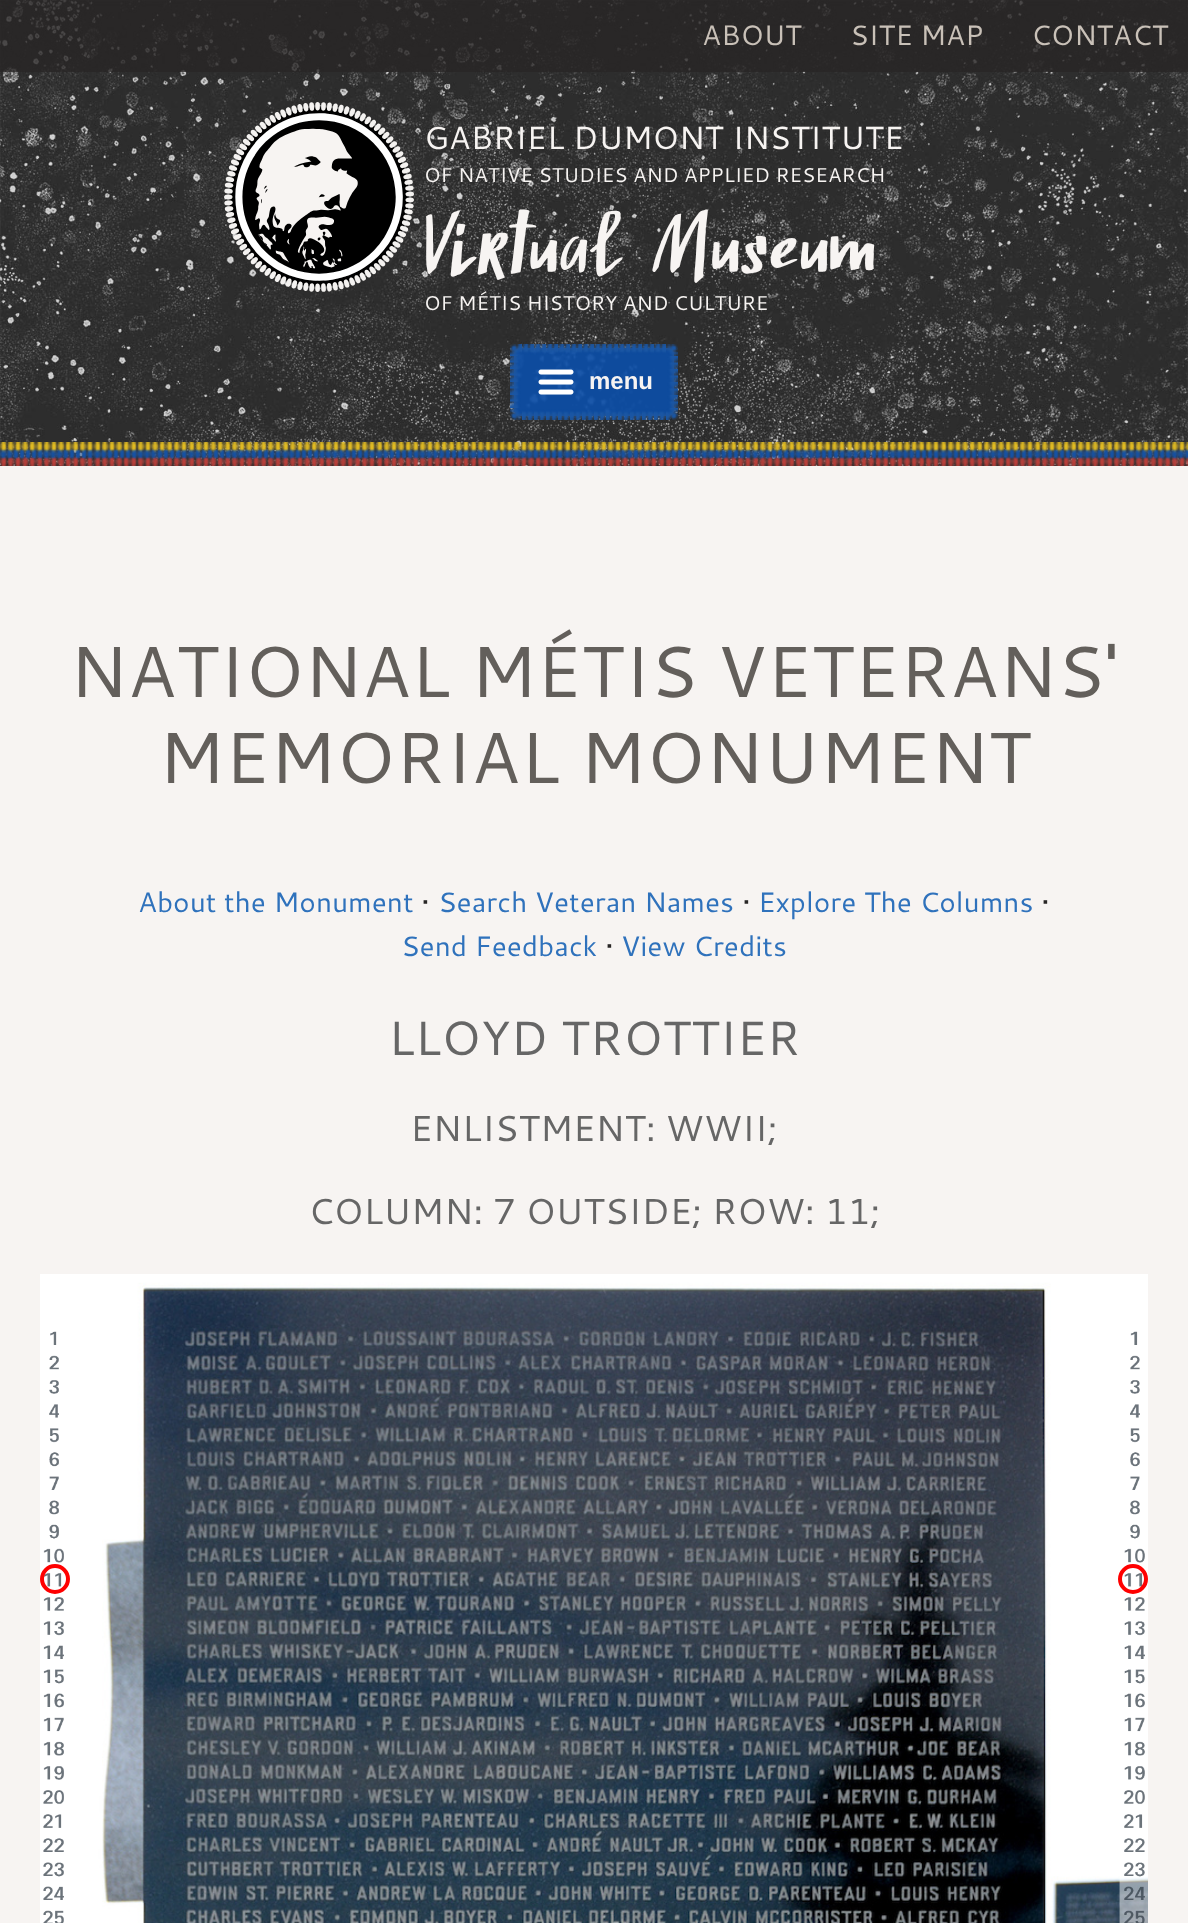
(async () => {
  const canvas = document.querySelector("canvas");
  canvas.width = 1188;
  canvas.height = 1923;
  const ctx = canvas.getContext("2d");
  ctx.miterLimit = 4;
  ctx.fontKerning = "normal";
  async function loadImage(src) {
    const img = new Image();
    img.src = src;
    await img.decode();
    return img;
  }

  ctx.fillStyle = "#f7f4f2";
  ctx.fillRect(0, 0, 1188, 1923);
  ctx.drawImage(await loadImage("img/1.png"), 0, 0, 1188, 466);
  ctx.fillStyle = "rgba(40, 38, 37, 0.8)";
  ctx.fillRect(0, 0, 1188, 72);
  ctx.drawImage(await loadImage("img/2.png"), 0, 442, 1188, 24);
  ctx.drawImage(await loadImage("img/3.png"), 224, 102, 190, 190);
  ctx.fillStyle = "#0f50a8";
  ctx.beginPath();
  ctx.roundRect(514, 348, 160, 68, 6);
  ctx.fill();
  ctx.drawImage(await loadImage("img/4.png"), 514, 348, 160, 68);
  ctx.drawImage(await loadImage("img/5.png"), 510, 344, 168, 76);
  ctx.drawImage(await loadImage("img/6.png"), 538, 369, 36, 26);
  ctx.drawImage(await loadImage("img/7.png"), 40, 1274, 1108, 649);
  ctx.drawImage(await loadImage("img/8.png"), 43, 1331, 1105, 592);
  ctx.beginPath();
  ctx.arc(55, 1579, 13, 0, Math.PI * 2);
  ctx.strokeStyle = "#ff0000";
  ctx.lineWidth = 4;
  ctx.stroke();
  ctx.beginPath();
  ctx.arc(1133, 1579, 13, 0, Math.PI * 2);
  ctx.stroke();
  ctx.font = "28px Cantarell";
  ctx.fillStyle = "#c9c1b8";
  for (const [text, x, y] of [
    ["ABOUT", 702, 45],
    ["SITE MAP", 850, 45],
    ["CONTACT", 1031, 45],
  ]) {
    ctx.fillText(text, x, y);
  }
  ctx.font = "32px Cantarell";
  ctx.fillStyle = "#f7f4f2";
  ctx.fillText("GABRIEL DUMONT INSTITUTE", 424, 149);
  ctx.font = "20px Cantarell";
  ctx.fillText("OF NATIVE STUDIES AND APPLIED RESEARCH", 424, 182);
  ctx.font = "88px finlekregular";
  ctx.fillText("Virtual Museum", 424, 274);
  ctx.font = "20px Cantarell";
  ctx.fillText("OF MÉTIS HISTORY AND CULTURE", 424, 310);
  ctx.font = "bold 24px Liberation Sans";
  ctx.fillText("menu", 589, 389);
  ctx.font = "72px Cantarell";
  ctx.fillStyle = "#635f5b";
  ctx.fillText("NATIONAL MÉTIS VETERANS'", 69, 697);
  ctx.fillText("MEMORIAL MONUMENT", 158, 783);
  ctx.font = "28px Cantarell";
  ctx.fillStyle = "#2f72bc";
  ctx.fillText("About the Monument", 138, 912);
  ctx.fillStyle = "#282625";
  ctx.fillText("•", 421, 912);
  ctx.fillStyle = "#2f72bc";
  ctx.fillText("Search Veteran Names", 438, 912);
  ctx.fillStyle = "#282625";
  ctx.fillText("•", 742, 912);
  ctx.fillStyle = "#2f72bc";
  ctx.fillText("Explore The Columns", 758, 912);
  ctx.fillStyle = "#282625";
  ctx.fillText("•", 1041, 912);
  ctx.fillStyle = "#2f72bc";
  ctx.fillText("Send Feedback", 401, 956);
  ctx.fillStyle = "#282625";
  ctx.fillText("•", 605, 956);
  ctx.fillStyle = "#2f72bc";
  ctx.fillText("View Credits", 621, 956);
  ctx.font = "48px Cantarell";
  ctx.fillStyle = "#666666";
  ctx.fillText("LLOYD TROTTIER", 388, 1055);
  ctx.font = "36px Cantarell";
  ctx.fillText("ENLISTMENT: WWII;", 410, 1141);
  ctx.fillText("COLUMN: 7 OUTSIDE; ROW: 11;", 308, 1224);
})();
